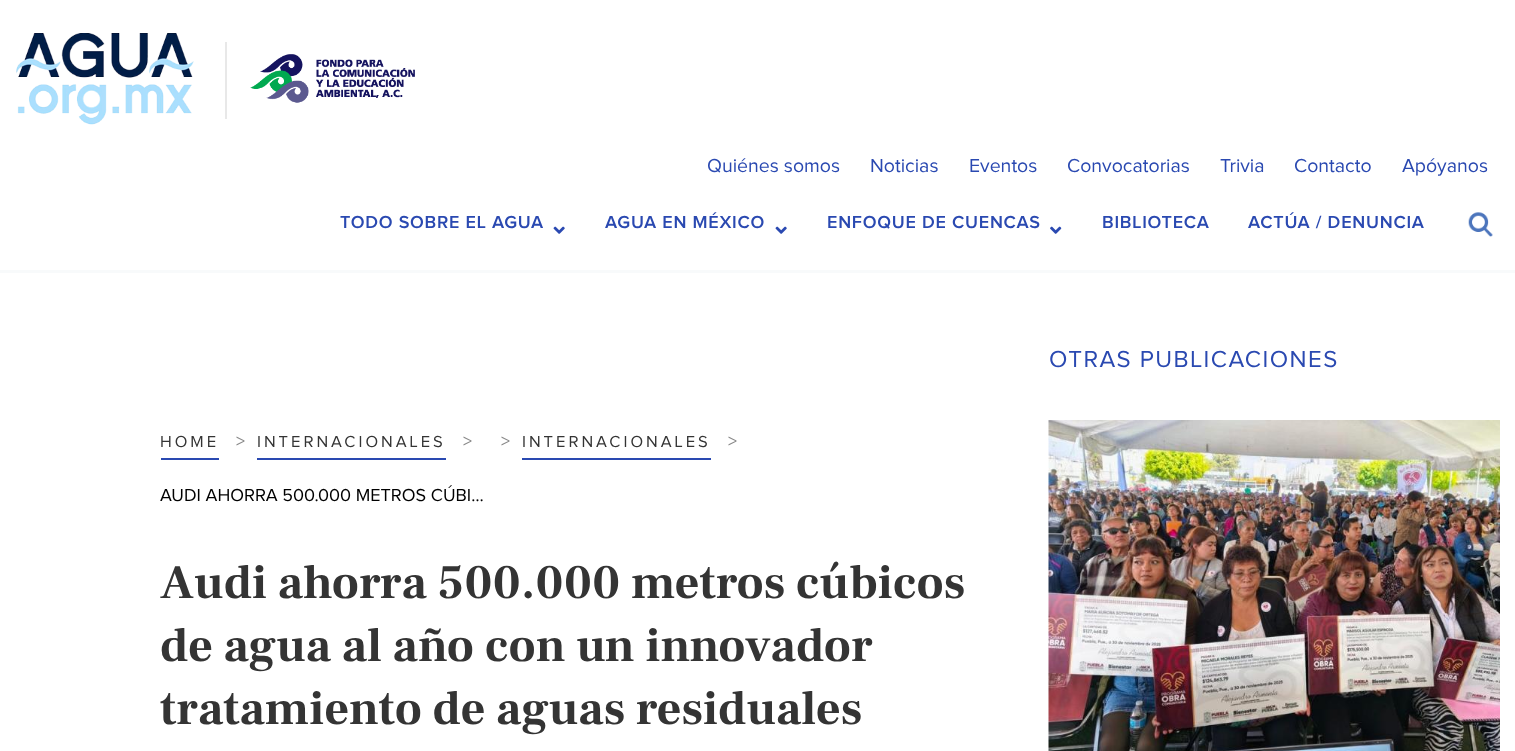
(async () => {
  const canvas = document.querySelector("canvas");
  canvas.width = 1515;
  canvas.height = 751;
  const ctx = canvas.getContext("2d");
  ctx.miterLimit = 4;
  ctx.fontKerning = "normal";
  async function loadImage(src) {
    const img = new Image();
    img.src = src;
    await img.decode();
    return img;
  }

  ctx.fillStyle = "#ffffff";
  ctx.fillRect(0, 0, 1515, 751);
  ctx.fillStyle = "#f8fafb";
  ctx.fillRect(0, 270, 1515, 3);
  ctx.drawImage(await loadImage("img/1.png"), 16, 33, 178, 92);
  ctx.fillStyle = "#e8e8e8";
  ctx.fillRect(225, 42, 2, 77);
  ctx.drawImage(await loadImage("img/2.png"), 250, 54, 165, 49);
  ctx.drawImage(await loadImage("img/3.png"), 553, 226, 12, 8);
  ctx.drawImage(await loadImage("img/3.png"), 775, 226, 12, 8);
  ctx.drawImage(await loadImage("img/4.png"), 1050, 226, 12, 8);
  ctx.drawImage(await loadImage("img/5.png"), 1468, 212, 25, 25);
  ctx.drawImage(await loadImage("img/6.png"), 1048, 420, 452, 331);
  for (const [x, y, w, h, color] of [
    [161, 458, 58, 2, "#2a49b1"],
    [257, 458, 189, 2, "#2a49b1"],
    [522, 458, 189, 2, "#2a49b1"],
  ]) {
    ctx.fillStyle = color;
    ctx.fillRect(x, y, w, h);
  }
  ctx.font = "19.5px Proxima Nova";
  for (const [text, x, y] of [
    ["Quiénes somos", 707, 172],
    ["Noticias", 870, 172],
    ["Eventos", 969, 172],
    ["Convocatorias", 1067, 172],
    ["Trivia", 1220, 172],
    ["Contacto", 1294, 172],
    ["Apóyanos", 1402, 172],
  ]) {
    ctx.fillText(text, x, y);
  }
  ctx.letterSpacing = "0.75px";
  ctx.font = "600 18px Proxima Nova";
  for (const [text, x, y] of [
    ["TODO SOBRE EL AGUA", 340, 228],
    ["AGUA EN MÉXICO", 605, 228],
    ["ENFOQUE DE CUENCAS", 827, 228],
    ["BIBLIOTECA", 1102, 228],
    ["ACTÚA / DENUNCIA", 1248, 228],
  ]) {
    ctx.fillText(text, x, y);
  }
  ctx.letterSpacing = "1.5px";
  ctx.font = "24px Proxima Nova";
  ctx.fillText("OTRAS PUBLICACIONES", 1049, 367);
  ctx.letterSpacing = "3px";
  ctx.font = "16.5px Proxima Nova";
  ctx.fillStyle = "#343434";
  ctx.fillText("HOME", 160, 447);
  ctx.letterSpacing = "0px";
  ctx.font = "18px Proxima Nova";
  ctx.fillStyle = "#888888";
  ctx.fillText(">", 236, 447);
  ctx.letterSpacing = "3px";
  ctx.font = "16.5px Proxima Nova";
  ctx.fillStyle = "#343434";
  ctx.fillText("INTERNACIONALES", 257, 447);
  ctx.letterSpacing = "0px";
  ctx.font = "18px Proxima Nova";
  ctx.fillStyle = "#888888";
  ctx.fillText(">", 463, 447);
  ctx.fillText(">", 501, 447);
  ctx.letterSpacing = "3px";
  ctx.font = "16.5px Proxima Nova";
  ctx.fillStyle = "#343434";
  ctx.fillText("INTERNACIONALES", 522, 447);
  ctx.letterSpacing = "0px";
  ctx.font = "18px Proxima Nova";
  ctx.fillStyle = "#888888";
  ctx.fillText(">", 728, 447);
  ctx.fillStyle = "#000000";
  ctx.fillText("AUDI AHORRA 500.000 METROS CÚBI…", 160, 501);
  ctx.font = "bold 48px Frank Ruhl Libre";
  ctx.fillStyle = "#343434";
  for (const [text, x, y] of [
    ["Audi ahorra 500.000 metros cúbicos", 160, 598],
    ["de agua al año con un innovador", 160, 661],
    ["tratamiento de aguas residuales", 160, 724],
  ]) {
    ctx.fillText(text, x, y);
  }
})();
